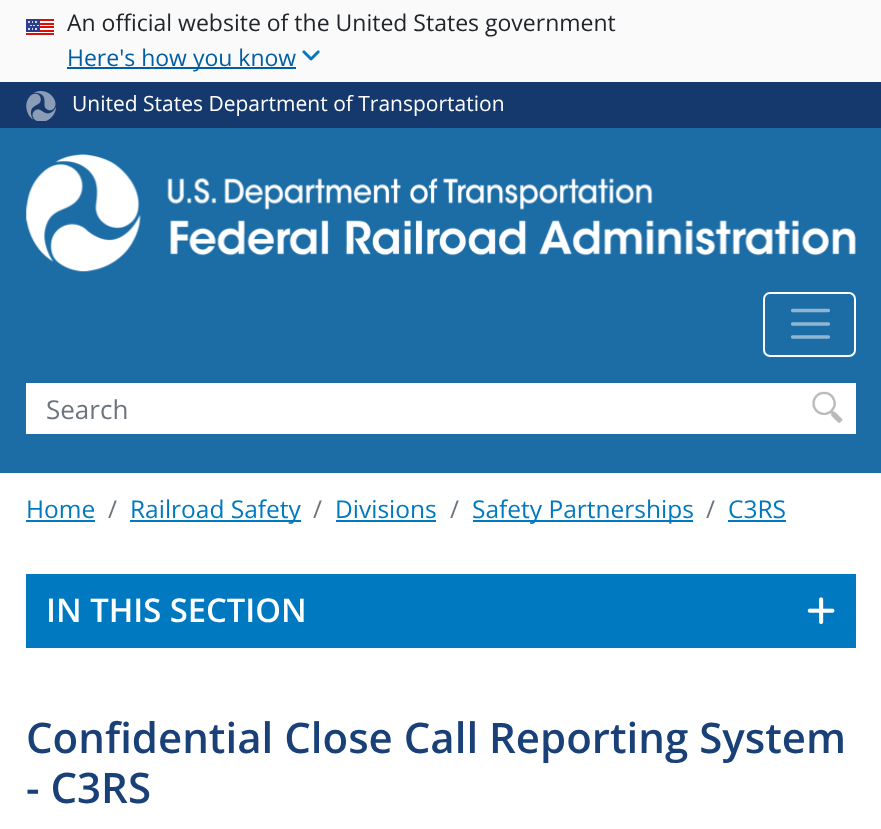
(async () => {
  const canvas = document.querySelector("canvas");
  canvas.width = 881;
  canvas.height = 829;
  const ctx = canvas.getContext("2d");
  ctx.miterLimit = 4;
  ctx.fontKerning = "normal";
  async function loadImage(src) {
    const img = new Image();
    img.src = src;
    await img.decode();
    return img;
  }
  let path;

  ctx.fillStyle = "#ffffff";
  ctx.fillRect(0, 0, 881, 829);
  ctx.fillStyle = "#fafafa";
  ctx.fillRect(0, 0, 881, 82);
  ctx.drawImage(await loadImage("img/1.png"), 26, 19, 28, 18);
  ctx.fillStyle = "#005ea2";
  ctx.fillRect(67, 67, 229, 2);
  ctx.drawImage(await loadImage("img/2.png"), 302, 50, 18, 11);
  ctx.fillStyle = "#15396c";
  ctx.fillRect(0, 82, 881, 46);
  ctx.drawImage(await loadImage("img/3.png"), 26, 91, 30, 30);
  ctx.fillStyle = "#1c6da6";
  ctx.fillRect(0, 128, 881, 345);
  ctx.drawImage(await loadImage("img/4.png"), 26, 154, 830, 118);
  ctx.beginPath();
  ctx.roundRect(764, 293, 91, 63, 6);
  ctx.strokeStyle = "#ffffff";
  ctx.lineWidth = 2;
  ctx.stroke();
  path = new Path2D("M792.5 310.5H828.5M792.5 324H828.5M792.5 337H828.5");
  ctx.strokeStyle = "#8eb6d3";
  ctx.lineWidth = 3.3;
  ctx.lineCap = "round";
  ctx.stroke(path);
  ctx.fillStyle = "#ffffff";
  ctx.fillRect(26, 383, 830, 51);
  ctx.drawImage(await loadImage("img/5.png"), 812, 391, 31, 32);
  for (const [x, y, w, h, color] of [
    [26, 520, 69, 2, "#0079c0"],
    [130, 520, 171, 2, "#0079c0"],
    [336, 520, 100, 2, "#0079c0"],
    [473, 520, 220, 2, "#0079c0"],
    [728, 520, 58, 2, "#0079c0"],
    [26, 574, 830, 74, "#0079c0"],
  ]) {
    ctx.fillStyle = color;
    ctx.fillRect(x, y, w, h);
  }
  ctx.drawImage(await loadImage("img/6.png"), 807, 597, 28, 27);
  ctx.font = "23px Open Sans";
  ctx.fillStyle = "#212529";
  ctx.fillText("An official website of the United States government", 67, 31);
  ctx.fillStyle = "#005ea2";
  ctx.fillText("Here's how you know", 67, 66);
  ctx.font = "21px Open Sans";
  ctx.fillStyle = "#ffffff";
  ctx.fillText("United States Department of Transportation", 72, 111);
  ctx.font = "26px Open Sans";
  ctx.fillStyle = "#6c757d";
  ctx.fillText("Search", 46, 419);
  ctx.font = "24.5px Open Sans";
  ctx.fillStyle = "#0079c0";
  ctx.fillText("Home", 26, 518);
  ctx.fillStyle = "#6c757d";
  ctx.fillText("/", 108, 518);
  ctx.fillStyle = "#0079c0";
  ctx.fillText("Railroad Safety", 130, 518);
  ctx.fillStyle = "#6c757d";
  ctx.fillText("/", 313, 518);
  ctx.fillStyle = "#0079c0";
  ctx.fillText("Divisions", 335, 518);
  ctx.fillStyle = "#6c757d";
  ctx.fillText("/", 450, 518);
  ctx.fillStyle = "#0079c0";
  ctx.fillText("Safety Partnerships", 472, 518);
  ctx.fillStyle = "#6c757d";
  ctx.fillText("/", 706, 518);
  ctx.fillStyle = "#0079c0";
  ctx.fillText("C3RS", 728, 518);
  ctx.font = "600 32.75px Open Sans";
  ctx.fillStyle = "#ffffff";
  ctx.fillText("IN THIS SECTION", 46, 622);
  ctx.font = "600 42px Open Sans";
  ctx.fillStyle = "#194178";
  ctx.fillText("Confidential Close Call Reporting System", 26, 753);
  ctx.fillText("- C3RS", 26, 803);
})();
